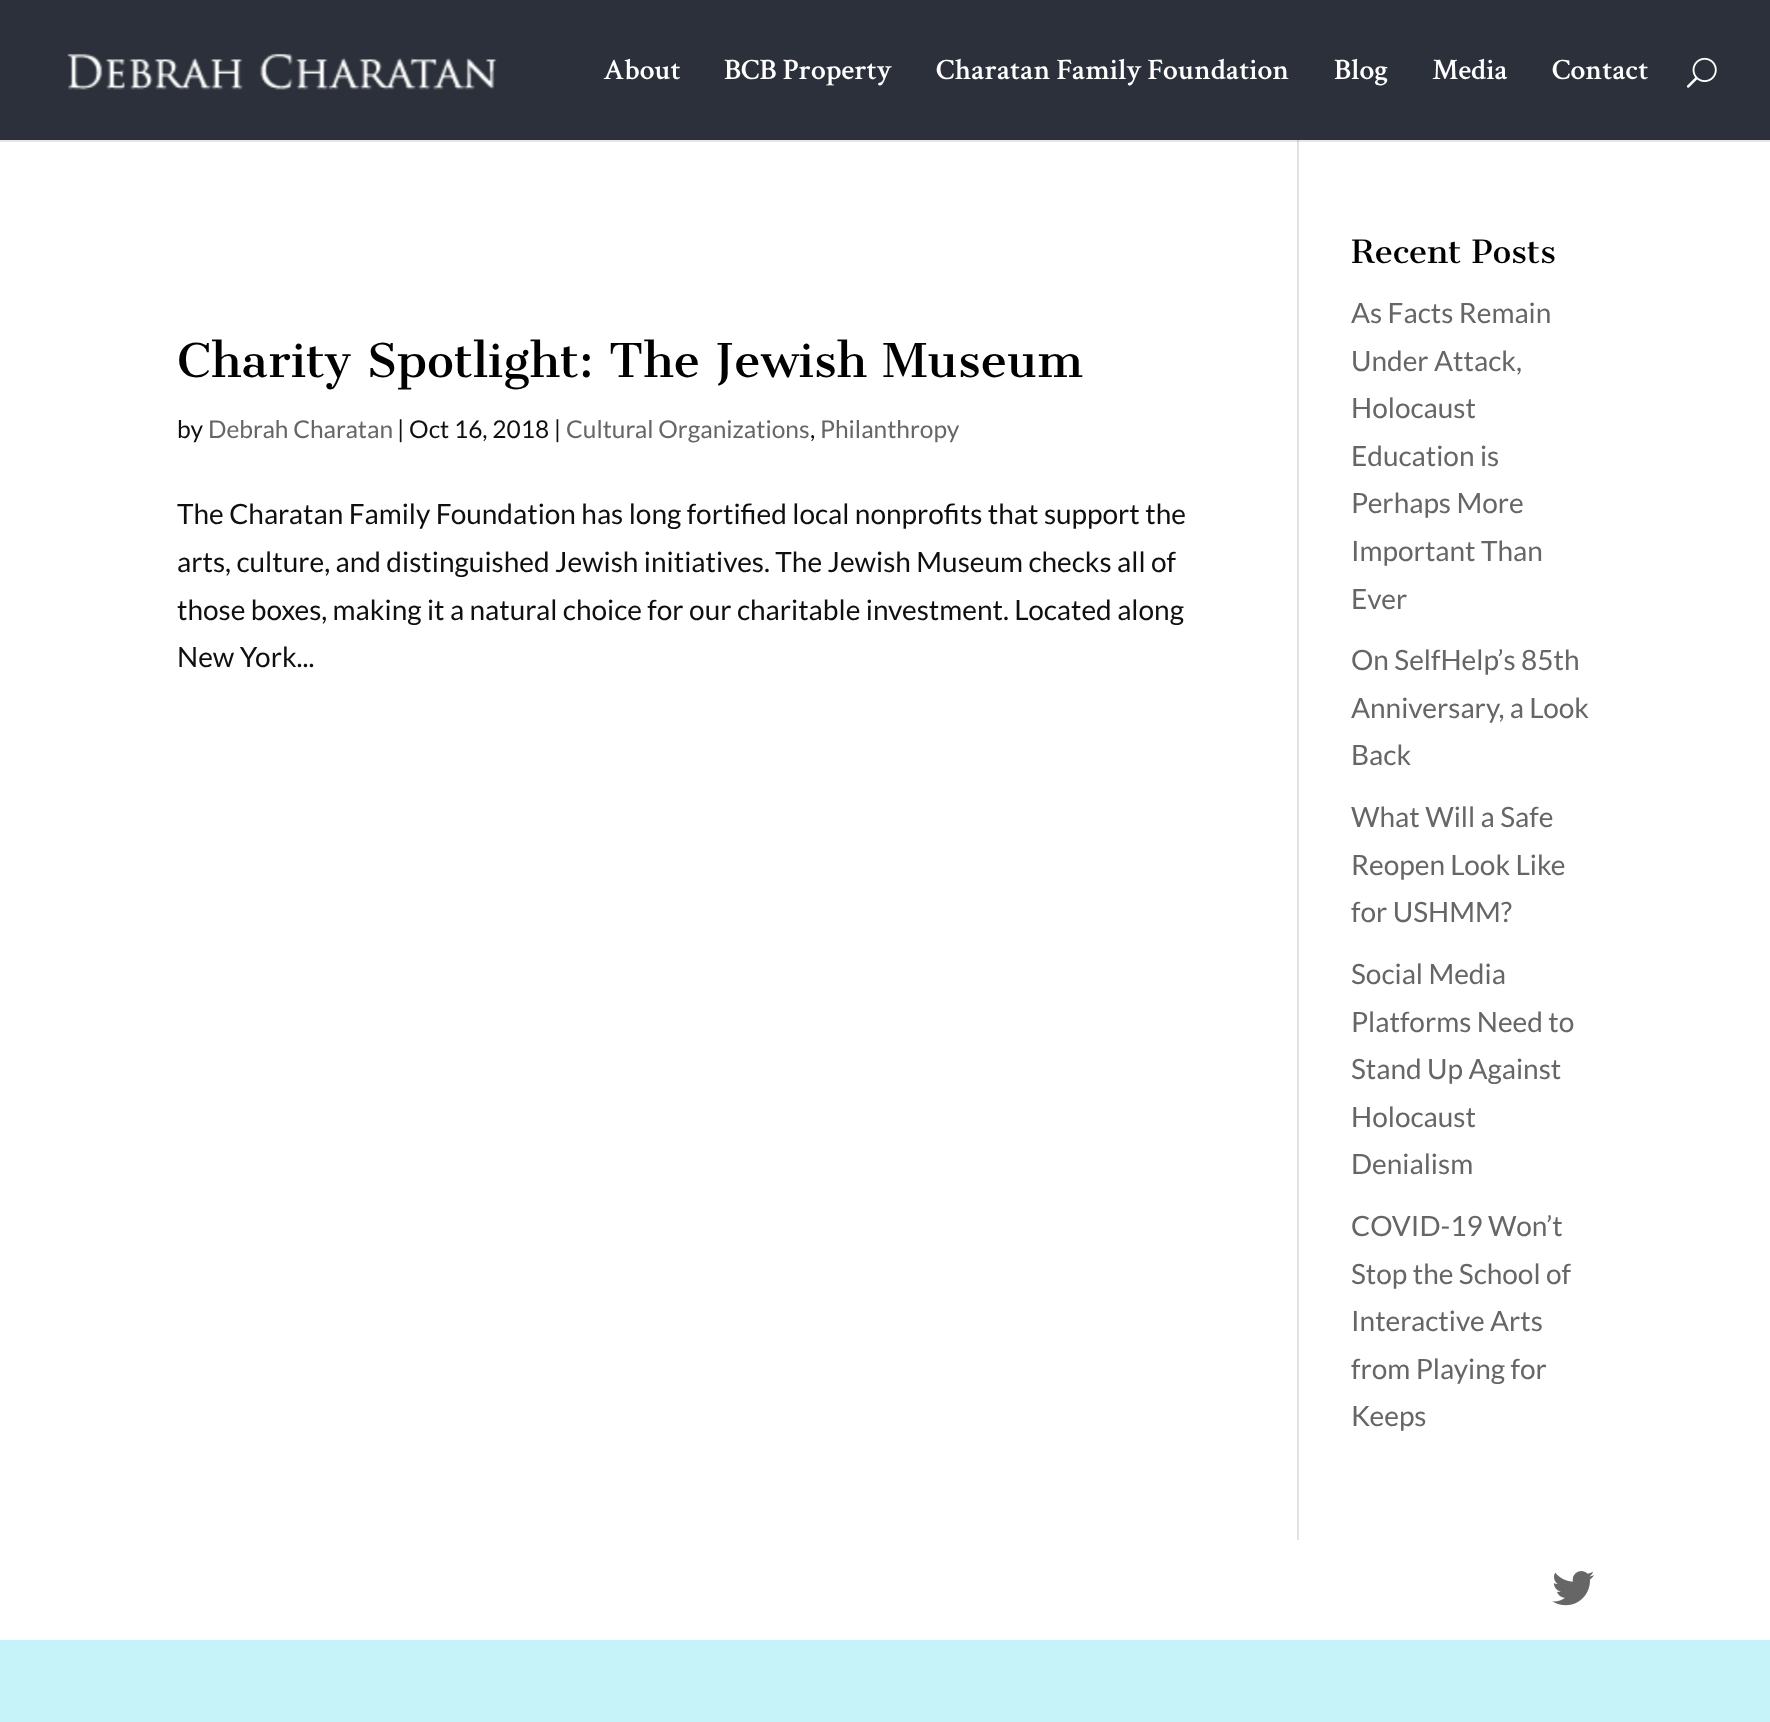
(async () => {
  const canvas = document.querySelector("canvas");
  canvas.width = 1770;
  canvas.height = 1722;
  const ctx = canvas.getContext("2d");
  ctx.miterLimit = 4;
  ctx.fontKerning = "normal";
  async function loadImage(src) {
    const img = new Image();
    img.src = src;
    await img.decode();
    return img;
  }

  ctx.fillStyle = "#c6f2fa";
  ctx.fillRect(0, 0, 1770, 1722);
  ctx.fillStyle = "#2b303a";
  ctx.fillRect(0, 0, 1770, 140);
  ctx.drawImage(await loadImage("img/1.png"), 67, 53, 430, 37);
  ctx.drawImage(await loadImage("img/2.png"), 1686, 57, 31, 31);
  for (const [x, y, w, h, color] of [
    [0, 142, 1770, 1498, "#ffffff"],
    [0, 140, 1770, 2, "#e6e6e6"],
    [1297, 142, 2, 1398, "#e2e2e2"],
    [1297, 140, 2, 2, "#cbcbcb"],
  ]) {
    ctx.fillStyle = color;
    ctx.fillRect(x, y, w, h);
  }
  ctx.drawImage(await loadImage("img/3.png"), 1552, 1571, 43, 35);
  ctx.font = "600 29.75px Crimson Text";
  ctx.fillStyle = "#ffffff";
  for (const [text, x, y] of [
    ["About", 603, 79],
    ["BCB Property", 724, 79],
    ["Charatan Family Foundation", 936, 79],
    ["Blog", 1334, 79],
    ["Media", 1432, 79],
    ["Contact", 1552, 79],
  ]) {
    ctx.fillText(text, x, y);
  }
  ctx.font = "45.5px Cantata One";
  ctx.fillStyle = "#000000";
  ctx.fillText("Charity Spotlight: The Jewish Museum", 177, 377);
  ctx.font = "24.5px Lato";
  ctx.fillStyle = "#0f0f0f";
  ctx.fillText("by", 177, 438);
  ctx.fillStyle = "#666666";
  ctx.fillText("Debrah Charatan", 208, 438);
  ctx.fillStyle = "#0f0f0f";
  ctx.fillText("| Oct 16, 2018 |", 397, 438);
  ctx.fillStyle = "#666666";
  ctx.fillText("Cultural Organizations", 566, 438);
  ctx.fillStyle = "#0f0f0f";
  ctx.fillText(",", 810, 438);
  ctx.fillStyle = "#666666";
  ctx.fillText("Philanthropy", 820, 438);
  ctx.font = "28px Lato";
  ctx.fillStyle = "#0f0f0f";
  for (const [text, x, y] of [
    ["The Charatan Family Foundation has long fortified local nonprofits that support the", 177, 524],
    ["arts, culture, and distinguished Jewish initiatives. The Jewish Museum checks all of", 177, 572],
    ["those boxes, making it a natural choice for our charitable investment. Located along", 177, 620],
    ["New York...", 177, 667],
  ]) {
    ctx.fillText(text, x, y);
  }
  ctx.font = "31.5px Cantata One";
  ctx.fillStyle = "#000000";
  ctx.fillText("Recent Posts", 1351, 263);
  ctx.font = "28px Lato";
  ctx.fillStyle = "#666666";
  for (const [text, x, y] of [
    ["As Facts Remain", 1351, 323],
    ["Under Attack,", 1351, 371],
    ["Holocaust", 1351, 418],
    ["Education is", 1351, 466],
    ["Perhaps More", 1351, 513],
    ["Important Than", 1351, 561],
    ["Ever", 1351, 609],
    ["On SelfHelp’s 85th", 1351, 670],
    ["Anniversary, a Look", 1351, 718],
    ["Back", 1351, 765],
    ["What Will a Safe", 1351, 827],
    ["Reopen Look Like", 1351, 875],
    ["for USHMM?", 1351, 922],
    ["Social Media", 1351, 984],
    ["Platforms Need to", 1351, 1032],
    ["Stand Up Against", 1351, 1079],
    ["Holocaust", 1351, 1127],
    ["Denialism", 1351, 1174],
    ["COVID-19 Won’t", 1351, 1236],
    ["Stop the School of", 1351, 1284],
    ["Interactive Arts", 1351, 1331],
    ["from Playing for", 1351, 1379],
    ["Keeps", 1351, 1426],
  ]) {
    ctx.fillText(text, x, y);
  }
})();
